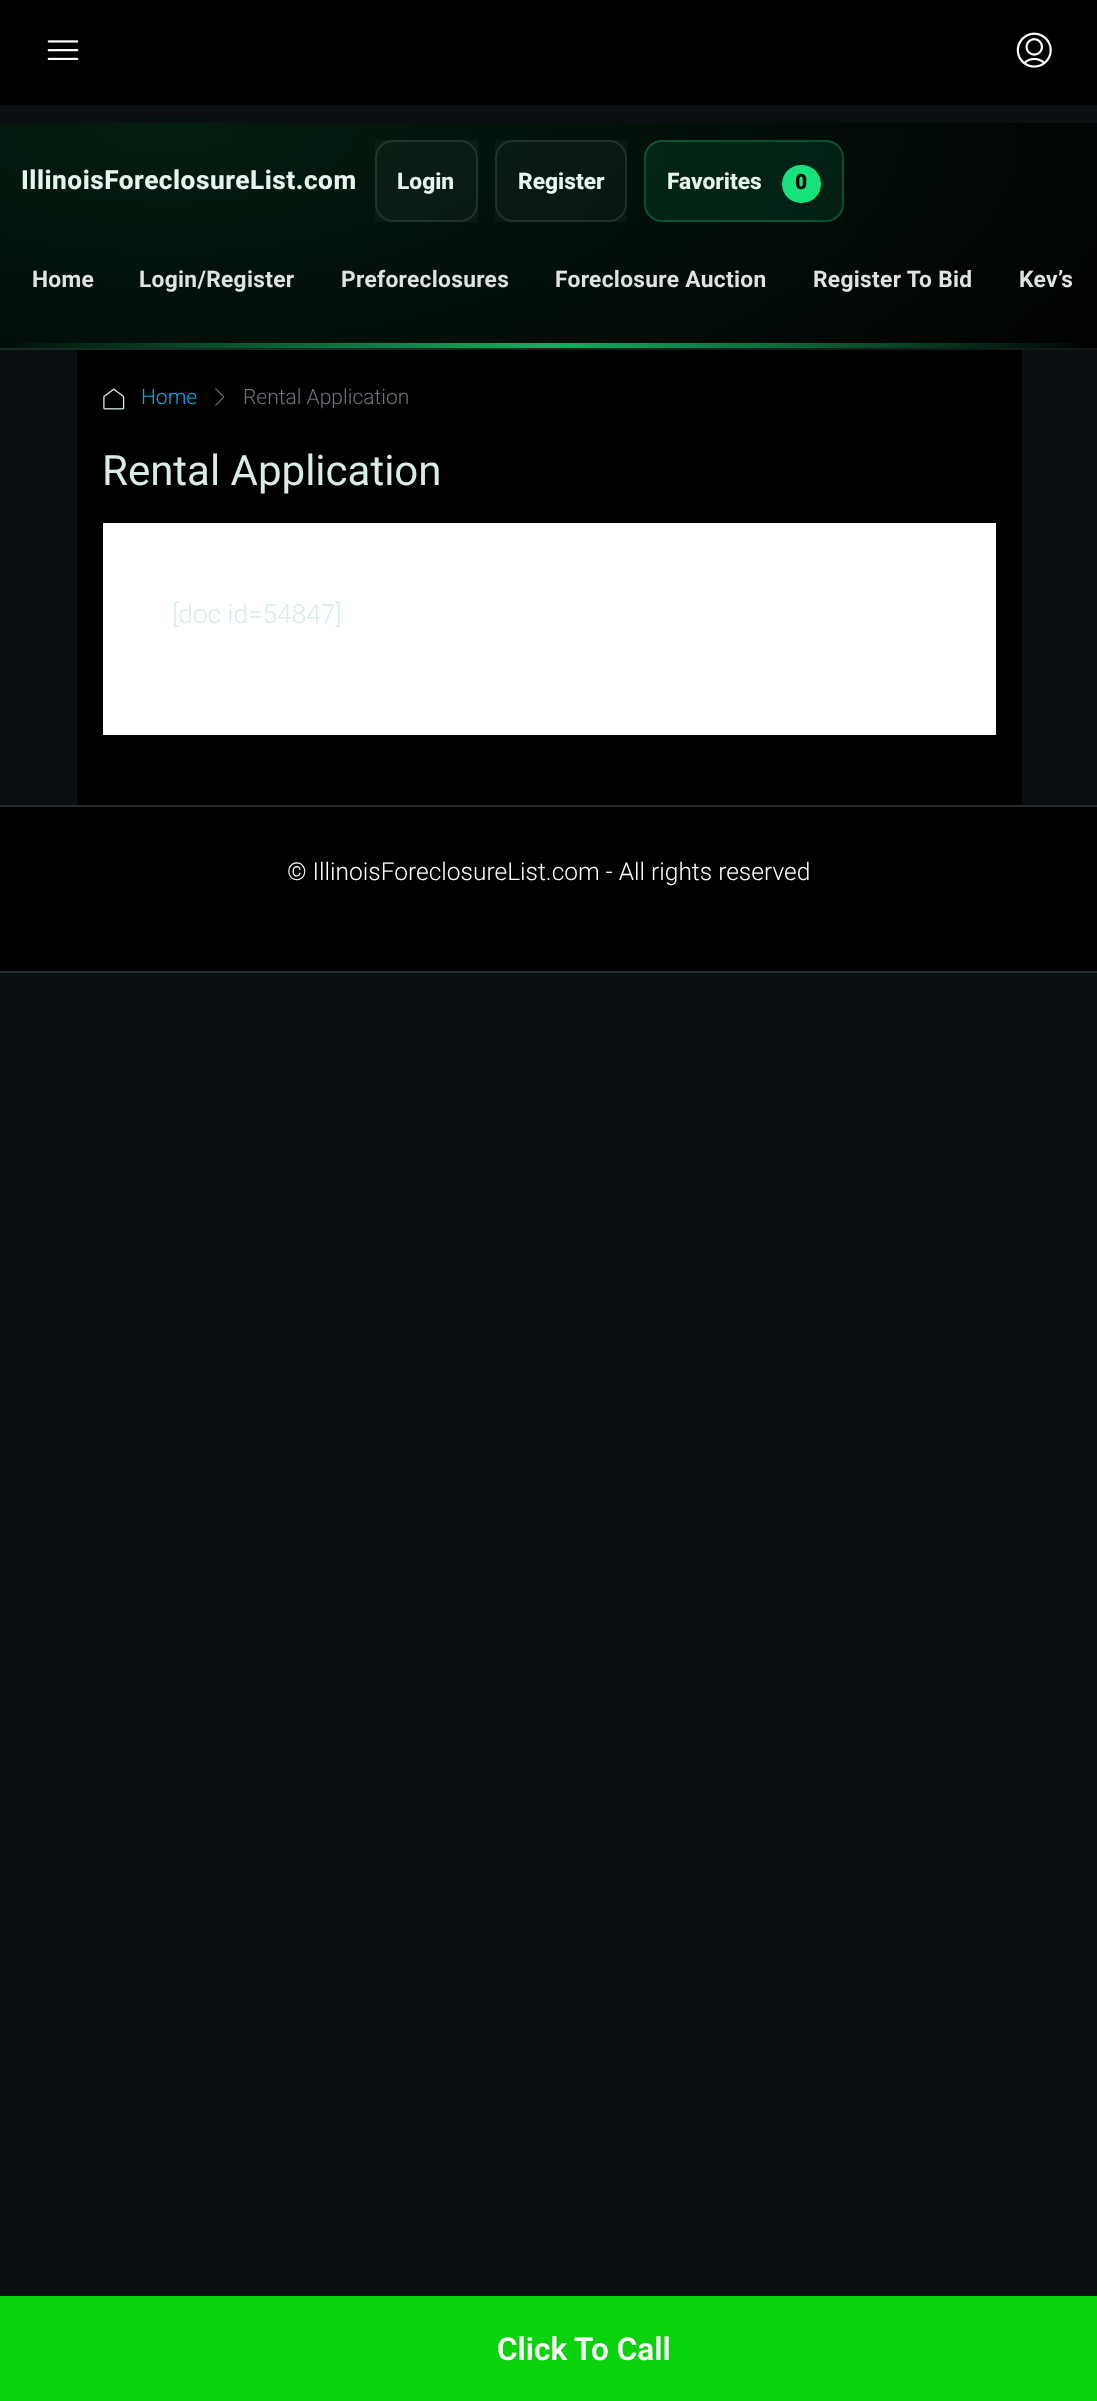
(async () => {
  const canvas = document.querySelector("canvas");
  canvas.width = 1097;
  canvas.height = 2401;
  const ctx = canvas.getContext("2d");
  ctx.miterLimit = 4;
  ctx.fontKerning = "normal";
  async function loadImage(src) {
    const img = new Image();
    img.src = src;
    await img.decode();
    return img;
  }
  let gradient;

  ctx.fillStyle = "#0a0f12";
  ctx.fillRect(0, 0, 1097, 2401);
  gradient = ctx.createRadialGradient(165, 292.86, 0, 165, 292.86, 1750);
  gradient.addColorStop(0, "#041d11");
  gradient.addColorStop(0.6, "#010203");
  ctx.fillStyle = gradient;
  ctx.beginPath();
  ctx.rect(0, 123, 1097, 225);
  ctx.save();
  ctx.clip();
  ctx.scale(1, 735 / 1750);
  ctx.fillRect(0, 0, 1097, 5717);
  ctx.restore();
  gradient = ctx.createRadialGradient(165, 828.57, 0, 165, 828.57, 1750);
  gradient.addColorStop(0, "#041c10");
  gradient.addColorStop(0.6, "#010101");
  ctx.fillStyle = gradient;
  ctx.beginPath();
  ctx.rect(0, 348, 1097, 2);
  ctx.save();
  ctx.clip();
  ctx.scale(1, 735 / 1750);
  ctx.fillRect(0, 0, 1097, 5717);
  ctx.restore();
  ctx.fillStyle = "rgba(255, 255, 255, 0.08)";
  ctx.fillRect(0, 348, 1097, 2);
  ctx.fillStyle = "rgba(255, 255, 255, 0.03)";
  ctx.fillRect(375, 140, 103, 82);
  ctx.beginPath();
  ctx.roundRect(376, 141, 101, 80, 17);
  ctx.strokeStyle = "rgba(255, 255, 255, 0.1)";
  ctx.lineWidth = 2;
  ctx.stroke();
  ctx.fillRect(495, 140, 132, 82);
  ctx.beginPath();
  ctx.roundRect(496, 141, 130, 80, 17);
  ctx.stroke();
  ctx.fillStyle = "rgba(24, 226, 123, 0.1)";
  ctx.beginPath();
  ctx.roundRect(644, 140, 200, 82, 18);
  ctx.fill();
  ctx.beginPath();
  ctx.roundRect(645, 141, 198, 80, 17);
  ctx.strokeStyle = "rgba(24, 226, 123, 0.25)";
  ctx.stroke();
  ctx.fillStyle = "#18e27b";
  ctx.beginPath();
  ctx.roundRect(782, 165, 39, 38, 19);
  ctx.fill();
  gradient = ctx.createLinearGradient(0, 346, 1097, 346);
  gradient.addColorStop(0, "rgba(24, 226, 123, 0)");
  gradient.addColorStop(0.5, "rgba(24, 226, 123, 0.77)");
  gradient.addColorStop(1, "rgba(24, 226, 123, 0)");
  ctx.fillStyle = gradient;
  ctx.fillRect(15, 343, 1067, 5);
  ctx.fillStyle = "#000000";
  ctx.fillRect(0, 0, 1097, 105);
  ctx.drawImage(await loadImage("img/1.png"), 47, 40, 32, 20);
  ctx.drawImage(await loadImage("img/2.png"), 1016, 32, 36, 36);
  ctx.fillRect(77, 350, 945, 455);
  ctx.drawImage(await loadImage("img/3.png"), 103, 388, 22, 22);
  ctx.drawImage(await loadImage("img/4.png"), 215, 388, 10, 18);
  for (const [x, y, w, h, color] of [
    [103, 523, 893, 212, "#ffffff"],
    [0, 805, 1097, 2, "#23292d"],
    [0, 971, 1097, 2, "#242c30"],
    [0, 807, 1097, 164, "#000000"],
    [0, 2296, 1097, 105, "#0ad30d"],
  ]) {
    ctx.fillStyle = color;
    ctx.fillRect(x, y, w, h);
  }
  ctx.letterSpacing = "0.5px";
  ctx.font = "800 26.25px Roboto";
  ctx.fillStyle = "#e8f5ef";
  ctx.fillText("IllinoisForeclosureList.com", 21, 189);
  ctx.letterSpacing = "0px";
  ctx.font = "800 22.75px Roboto";
  for (const [text, x, y] of [
    ["Login", 397, 189],
    ["Register", 518, 189],
    ["Favorites", 667, 189],
  ]) {
    ctx.fillText(text, x, y);
  }
  ctx.font = "900 21px Roboto";
  ctx.fillStyle = "#000000";
  ctx.fillText("0", 795, 189);
  ctx.letterSpacing = "0.3px";
  ctx.font = "bold 22.75px Roboto";
  ctx.fillStyle = "#e1e3e2";
  for (const [text, x, y] of [
    ["Home", 32, 287],
    ["Login/Register", 139, 287],
    ["Preforeclosures", 341, 287],
    ["Foreclosure Auction", 555, 287],
    ["Register To Bid", 813, 287],
    ["Kev’s", 1019, 287],
  ]) {
    ctx.fillText(text, x, y);
  }
  ctx.letterSpacing = "0px";
  ctx.font = "300 21px Roboto";
  ctx.fillStyle = "#00aeff";
  ctx.fillText("Home", 141, 404);
  ctx.fillStyle = "#6c757d";
  ctx.fillText("Rental Application", 243, 404);
  ctx.font = "42px Roboto";
  ctx.fillStyle = "#d6eee3";
  ctx.fillText("Rental Application", 102, 485);
  ctx.font = "300 26.25px Roboto";
  ctx.fillText("[doc id=54847]", 172, 623);
  ctx.font = "300 24.5px Roboto";
  ctx.fillStyle = "#ffffff";
  ctx.fillText("© IllinoisForeclosureList.com - All rights reserved", 287, 880);
  ctx.font = "600 31.5px Roboto";
  ctx.fillText("Click To Call", 497, 2360);
})();
